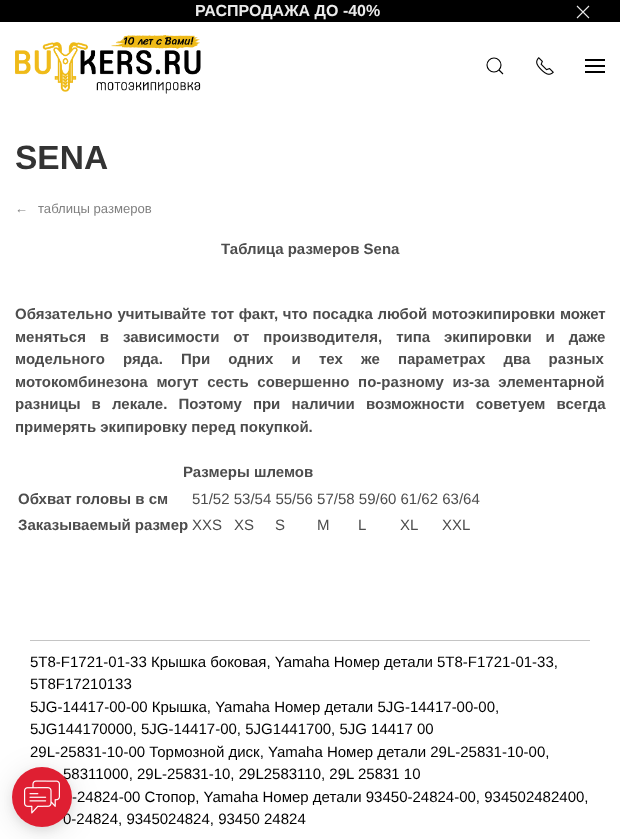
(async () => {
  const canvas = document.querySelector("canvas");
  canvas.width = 620;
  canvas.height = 839;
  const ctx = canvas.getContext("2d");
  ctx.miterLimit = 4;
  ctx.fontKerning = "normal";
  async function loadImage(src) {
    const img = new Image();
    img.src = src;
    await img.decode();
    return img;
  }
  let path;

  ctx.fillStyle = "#ffffff";
  ctx.fillRect(0, 0, 620, 839);
  ctx.fillStyle = "#000000";
  ctx.fillRect(0, 0, 620, 22);
  path = new Path2D("M577 6L589 18M589 6L577 18");
  ctx.strokeStyle = "#eaeaea";
  ctx.lineWidth = 1.1;
  ctx.stroke(path);
  ctx.drawImage(await loadImage("img/1.png"), 15, 35, 186, 59);
  ctx.beginPath();
  ctx.arc(494, 65, 7, 0, Math.PI * 2);
  ctx.strokeStyle = "#000000";
  ctx.stroke();
  path = new Path2D("M499 70L503 74Z");
  ctx.stroke(path);
  ctx.drawImage(await loadImage("img/2.png"), 536, 57, 18, 18);
  for (const [x, y, w, h, color] of [
    [585, 59, 20, 2, "#000000"],
    [585, 65, 20, 2, "#000000"],
    [585, 71, 20, 2, "#000000"],
    [30, 640, 560, 1, "#c4c4c4"],
  ]) {
    ctx.fillStyle = color;
    ctx.fillRect(x, y, w, h);
  }
  ctx.fillStyle = "rgba(0, 0, 0, 0.1)";
  ctx.filter = "blur(15px)";
  ctx.beginPath();
  ctx.roundRect(12, 771, 60, 60, 30);
  ctx.fill();
  ctx.filter = "none";
  ctx.fillStyle = "rgba(0, 0, 0, 0.08)";
  ctx.filter = "blur(5px)";
  ctx.beginPath();
  ctx.roundRect(12, 771, 60, 60, 30);
  ctx.fill();
  ctx.filter = "none";
  ctx.font = "bold 16px Liberation Sans";
  ctx.fillStyle = "#eaeaea";
  ctx.fillText("РАСПРОДАЖА ДО -40%", 195, 16);
  ctx.font = "bold 33.5px Liberation Sans";
  ctx.fillStyle = "#333333";
  ctx.fillText("SENA", 15, 169);
  ctx.font = "13.1px Liberation Sans";
  ctx.fillStyle = "#808080";
  ctx.fillText("←", 15, 213);
  ctx.fillText("таблицы размеров", 38, 213);
  ctx.font = "bold 15px Liberation Sans";
  ctx.fillStyle = "#4d4d4d";
  ctx.fillText("Таблица размеров Sena", 221, 254);
  ctx.wordSpacing = "0.5px";
  ctx.fillText("Обязательно учитывайте тот факт, что посадка любой мотоэкипировки может", 15, 319);
  ctx.wordSpacing = "9.75px";
  ctx.fillText("меняться в зависимости от производителя, типа экипировки и даже", 15, 342);
  ctx.wordSpacing = "14px";
  ctx.fillText("модельного ряда. При одних и тех же параметрах два разных", 15, 364);
  ctx.wordSpacing = "4.5px";
  ctx.fillText("мотокомбинезона могут сесть совершенно по-разному из-за элементарной", 15, 387);
  ctx.wordSpacing = "7px";
  ctx.fillText("разницы в лекале. Поэтому при наличии возможности советуем всегда", 15, 409);
  ctx.wordSpacing = "0px";
  for (const [text, x, y] of [
    ["примерять экипировку перед покупкой.", 15, 432],
    ["Размеры шлемов", 183, 477],
    ["Обхват головы в см", 18, 504],
  ]) {
    ctx.fillText(text, x, y);
  }
  ctx.font = "15px Liberation Sans";
  ctx.fillText("51/52 53/54 55/56 57/58 59/60 61/62 63/64", 192, 504);
  ctx.font = "bold 15px Liberation Sans";
  ctx.fillText("Заказываемый размер", 18, 530);
  ctx.font = "15px Liberation Sans";
  for (const [text, x, y] of [
    ["XXS", 192, 530],
    ["XS", 234, 530],
    ["S", 275, 530],
    ["M", 317, 530],
    ["L", 358, 530],
    ["XL", 400, 530],
    ["XXL", 442, 530],
  ]) {
    ctx.fillText(text, x, y);
  }
  ctx.fillStyle = "#000000";
  for (const [text, x, y] of [
    ["5T8-F1721-01-33 Крышка боковая, Yamaha Номер детали 5T8-F1721-01-33,", 30, 667],
    ["5T8F17210133", 30, 689],
    ["5JG-14417-00-00 Крышка, Yamaha Номер детали 5JG-14417-00-00,", 30, 712],
    ["5JG144170000, 5JG-14417-00, 5JG1441700, 5JG 14417 00", 30, 734],
    ["29L-25831-10-00 Тормозной диск, Yamaha Номер детали 29L-25831-10-00,", 30, 757],
    ["58311000, 29L-25831-10, 29L2583110, 29L 25831 10", 63, 779],
    ["-24824-00 Стопор, Yamaha Номер детали 93450-24824-00, 934502482400,", 72, 802],
    ["0-24824, 9345024824, 93450 24824", 63, 824],
  ]) {
    ctx.fillText(text, x, y);
  }
  ctx.fillStyle = "#df1f32";
  ctx.beginPath();
  ctx.arc(42, 797, 30, 0, Math.PI * 2);
  ctx.fill();
  ctx.drawImage(await loadImage("img/3.png"), 24, 780, 36, 34);
})();
